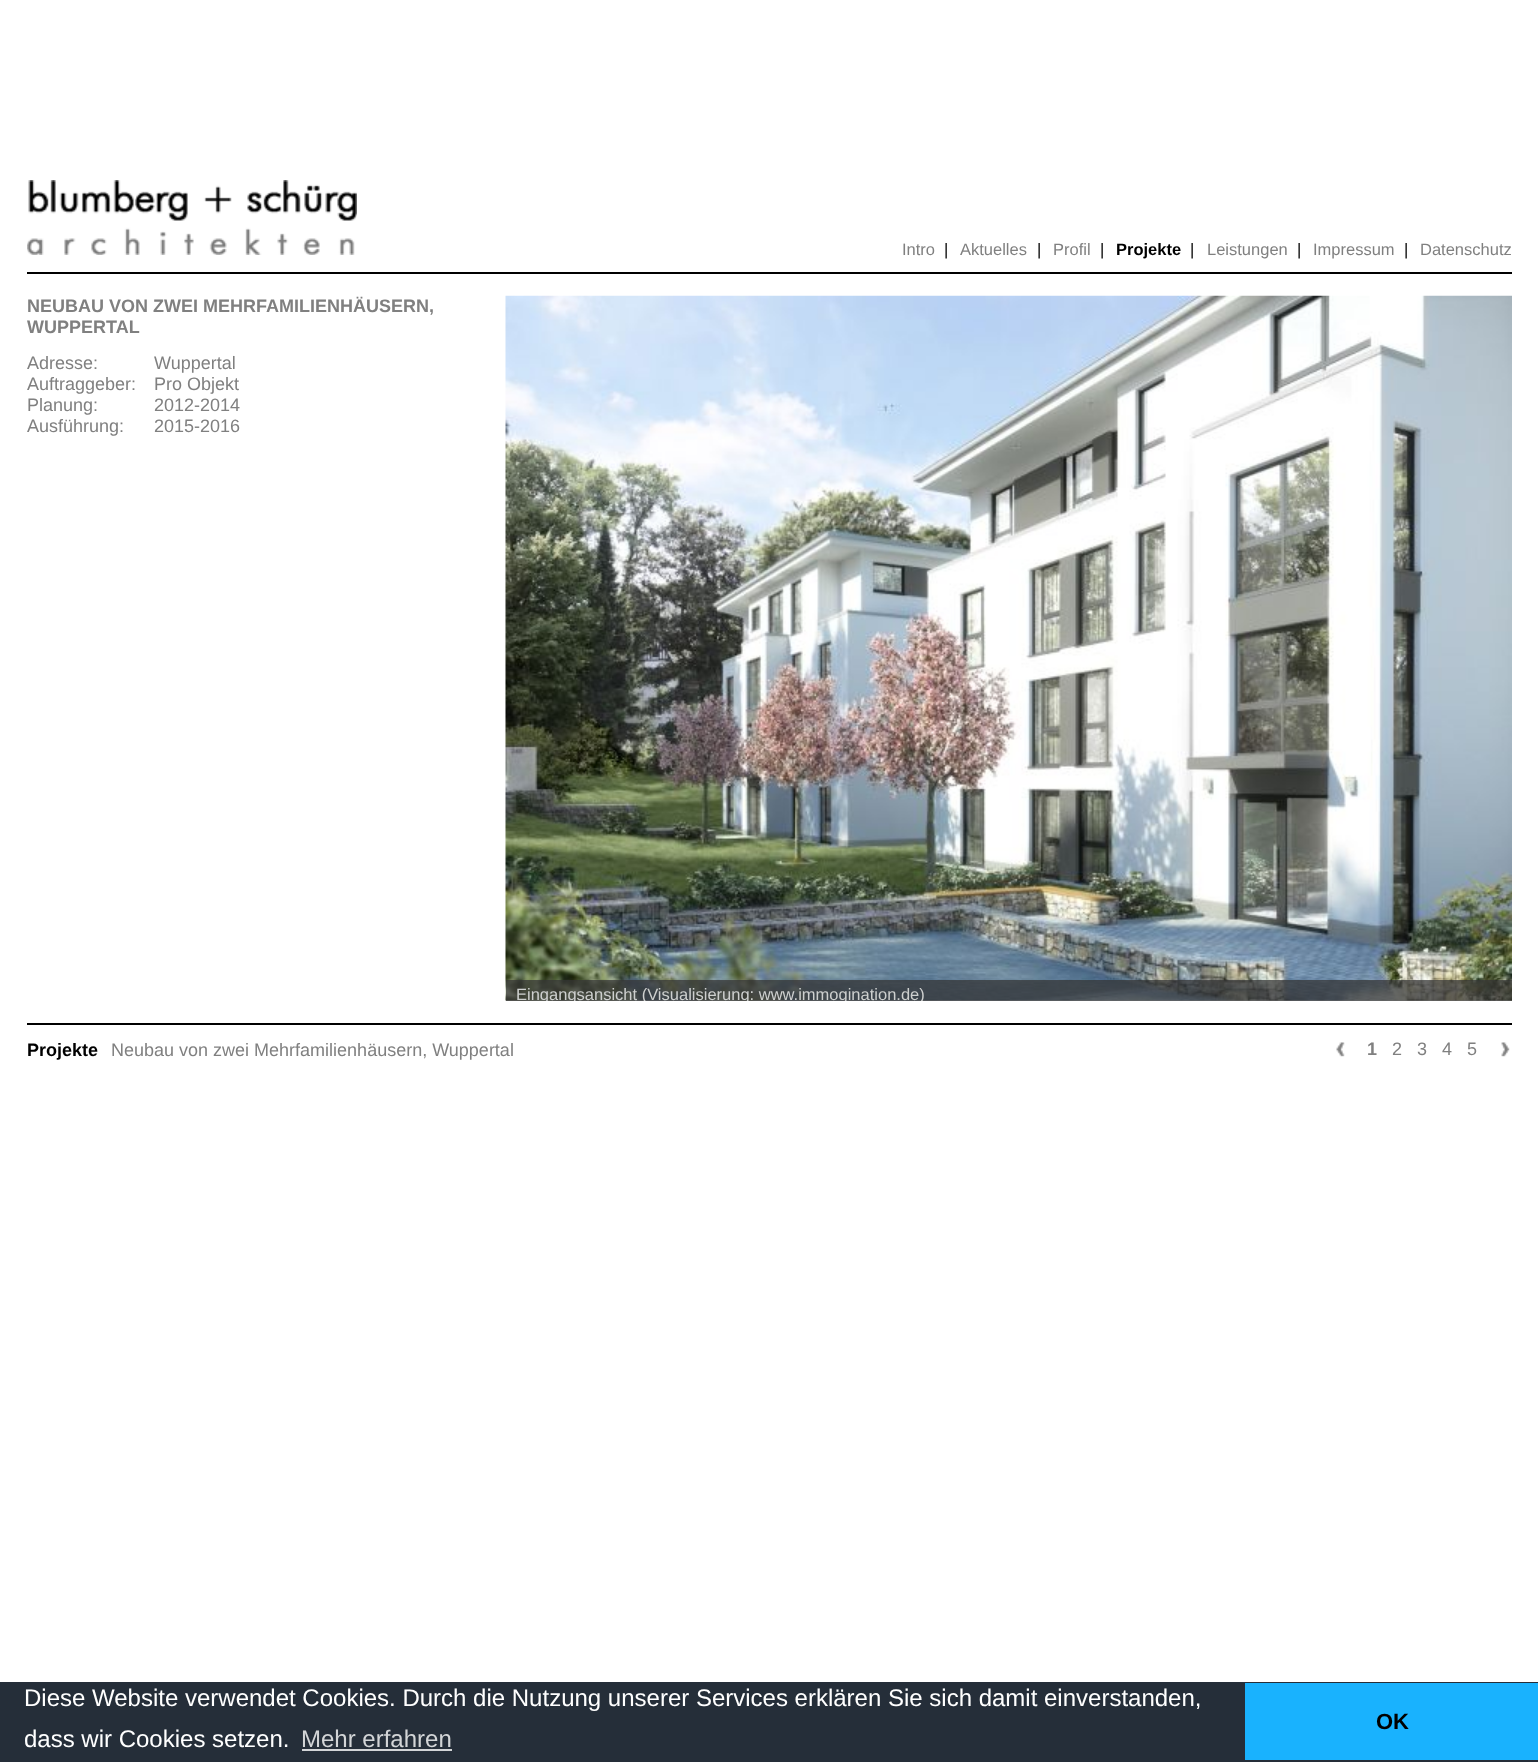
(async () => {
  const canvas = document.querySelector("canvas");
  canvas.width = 1538;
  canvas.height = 1762;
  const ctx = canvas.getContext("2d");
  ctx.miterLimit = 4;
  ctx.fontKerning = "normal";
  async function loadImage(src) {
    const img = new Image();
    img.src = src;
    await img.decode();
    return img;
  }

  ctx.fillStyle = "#ffffff";
  ctx.fillRect(0, 0, 1538, 1762);
  ctx.fillStyle = "#000000";
  ctx.fillRect(27, 272, 1485, 2);
  ctx.drawImage(await loadImage("img/1.png"), 27, 180, 330, 75);
  ctx.fillRect(27, 1023, 1485, 2);
  ctx.drawImage(await loadImage("img/2.png"), 505, 295, 1007, 706);
  ctx.fillStyle = "rgba(52, 52, 52, 0.74)";
  ctx.fillRect(506, 980, 1006, 21);
  ctx.drawImage(await loadImage("img/3.png"), 1336, 1042, 9, 15);
  ctx.drawImage(await loadImage("img/4.png"), 1501, 1042, 9, 15);
  for (const [x, y, w, h, color] of [
    [0, 1682, 1538, 80, "#252e39"],
    [302, 1749, 150, 2, "#d3d5d7"],
    [1245, 1683, 293, 77, "#19b2fe"],
  ]) {
    ctx.fillStyle = color;
    ctx.fillRect(x, y, w, h);
  }
  ctx.font = "16.5px Liberation Sans";
  ctx.fillStyle = "#808080";
  ctx.fillText("Intro", 902, 255);
  ctx.fillStyle = "#000000";
  ctx.fillText("|", 944, 255);
  ctx.fillStyle = "#808080";
  ctx.fillText("Aktuelles", 960, 255);
  ctx.fillStyle = "#000000";
  ctx.fillText("|", 1037, 255);
  ctx.fillStyle = "#808080";
  ctx.fillText("Profil", 1053, 255);
  ctx.fillStyle = "#000000";
  ctx.fillText("|", 1100, 255);
  ctx.font = "bold 16.5px Liberation Sans";
  ctx.fillText("Projekte", 1116, 255);
  ctx.font = "16.5px Liberation Sans";
  ctx.fillText("|", 1190, 255);
  ctx.fillStyle = "#808080";
  ctx.fillText("Leistungen", 1207, 255);
  ctx.fillStyle = "#000000";
  ctx.fillText("|", 1297, 255);
  ctx.fillStyle = "#808080";
  ctx.fillText("Impressum", 1313, 255);
  ctx.fillStyle = "#000000";
  ctx.fillText("|", 1404, 255);
  ctx.fillStyle = "#808080";
  ctx.fillText("Datenschutz", 1420, 255);
  ctx.font = "bold 18px Liberation Sans";
  ctx.fillText("NEUBAU VON ZWEI MEHRFAMILIENHÄUSERN,", 27, 312);
  ctx.fillText("WUPPERTAL", 27, 333);
  ctx.font = "18px Liberation Sans";
  for (const [text, x, y] of [
    ["Adresse:", 27, 369],
    ["Wuppertal", 154, 369],
    ["Auftraggeber:", 27, 390],
    ["Pro Objekt", 154, 390],
    ["Planung:", 27, 411],
    ["2012-2014", 154, 411],
    ["Ausführung:", 27, 432],
    ["2015-2016", 154, 432],
  ]) {
    ctx.fillText(text, x, y);
  }
  ctx.save();
  ctx.beginPath();
  ctx.rect(506, 980, 1006, 21);
  ctx.clip();
  ctx.font = "16.5px Liberation Sans";
  ctx.fillStyle = "#ced0cf";
  ctx.fillText("Eingangsansicht (Visualisierung: www.immogination.de)", 516, 1000);
  ctx.restore();
  ctx.font = "bold 18px Liberation Sans";
  ctx.fillText("1", 1367, 1055);
  ctx.font = "18px Liberation Sans";
  for (const [text, x, y] of [
    ["2", 1392, 1055],
    ["3", 1417, 1055],
    ["4", 1442, 1055],
    ["5", 1467, 1055],
  ]) {
    ctx.fillText(text, x, y);
  }
  ctx.font = "bold 18px Liberation Sans";
  ctx.fillStyle = "#000000";
  ctx.fillText("Projekte", 27, 1056);
  ctx.font = "18px Liberation Sans";
  ctx.fillStyle = "#808080";
  ctx.fillText("Neubau von zwei Mehrfamilienhäusern, Wuppertal", 111, 1056);
  ctx.font = "24px Liberation Sans";
  ctx.fillStyle = "#ffffff";
  ctx.fillText("Diese Website verwendet Cookies. Durch die Nutzung unserer Services erklären Sie sich damit einverstanden,", 24, 1706);
  ctx.fillText("dass wir Cookies setzen.", 24, 1747);
  ctx.fillStyle = "#d3d5d7";
  ctx.fillText("Mehr erfahren", 301, 1747);
  ctx.font = "bold 22px Liberation Sans";
  ctx.fillStyle = "#000000";
  ctx.fillText("OK", 1376, 1729);
})();
